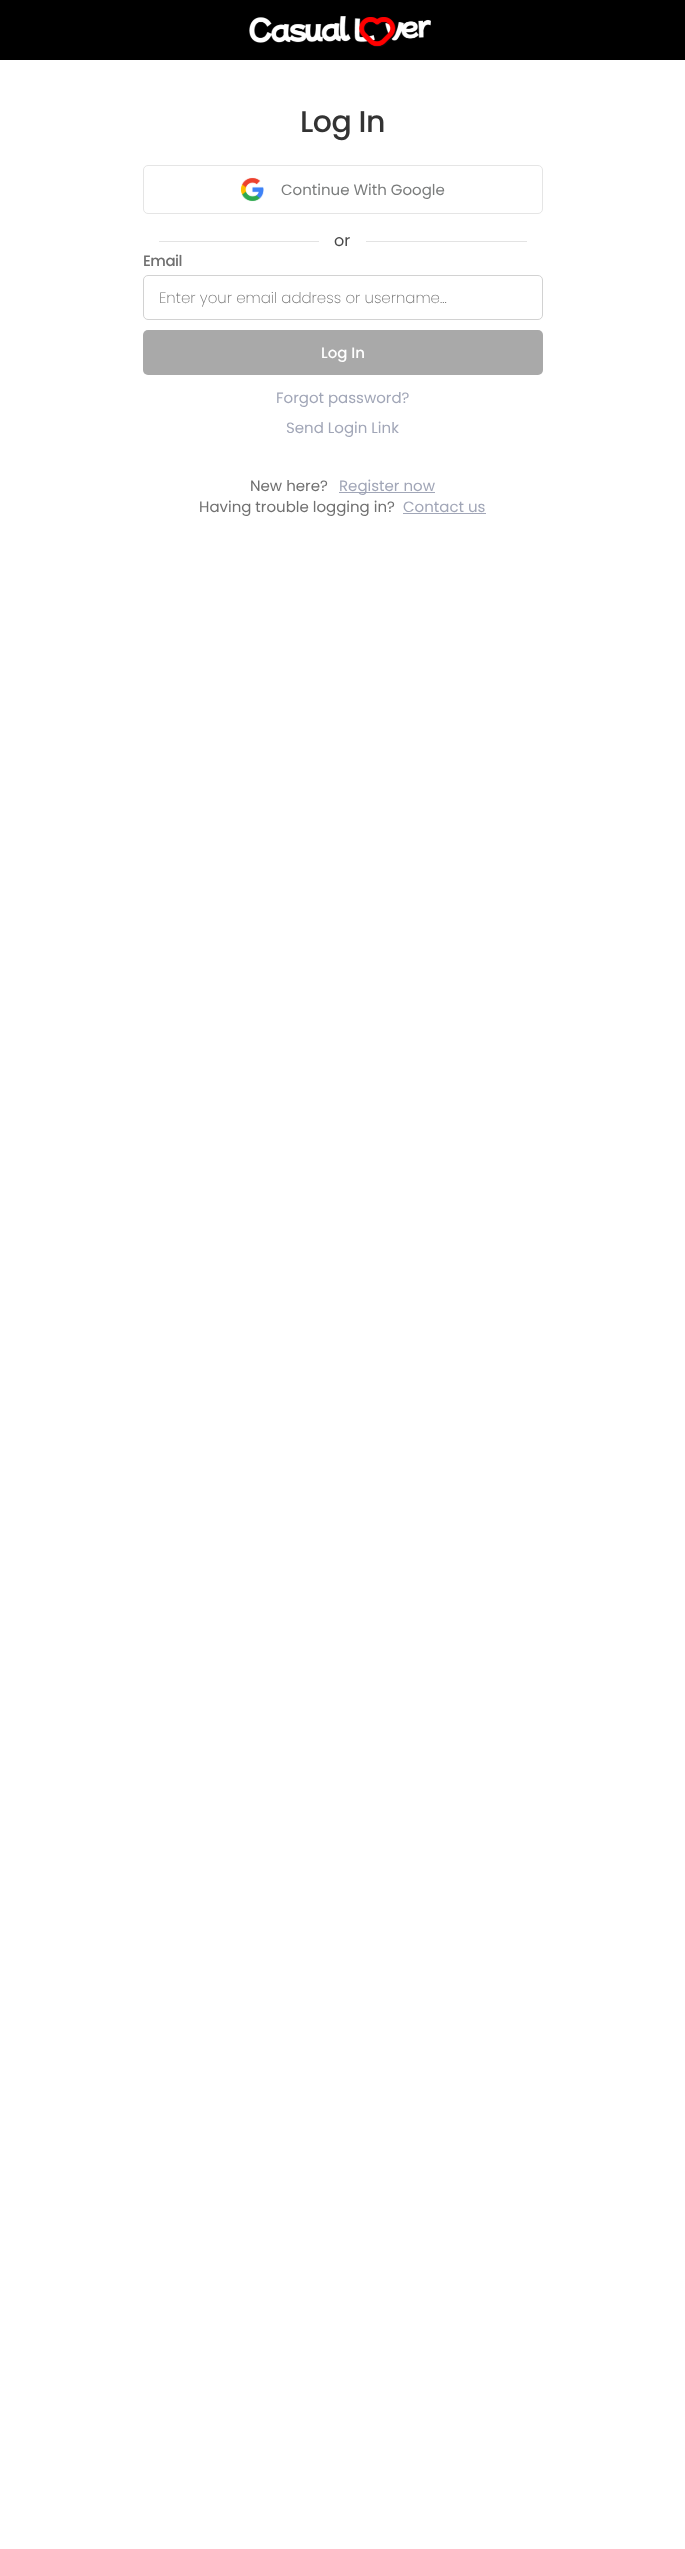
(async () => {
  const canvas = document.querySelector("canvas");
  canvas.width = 685;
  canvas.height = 2549;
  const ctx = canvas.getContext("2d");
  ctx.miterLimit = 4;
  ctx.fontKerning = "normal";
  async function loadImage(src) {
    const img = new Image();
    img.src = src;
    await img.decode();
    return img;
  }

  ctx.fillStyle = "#ffffff";
  ctx.fillRect(0, 0, 685, 2549);
  ctx.fillStyle = "#000000";
  ctx.fillRect(0, 0, 685, 60);
  ctx.drawImage(await loadImage("img/1.png"), 249, 16, 182, 31);
  ctx.beginPath();
  ctx.roundRect(143.5, 165.5, 399, 48, 4.5);
  ctx.strokeStyle = "#e5e5e5";
  ctx.stroke();
  ctx.drawImage(await loadImage("img/2.png"), 240, 177, 24, 25);
  ctx.fillStyle = "#e3e3e3";
  ctx.fillRect(159, 241, 368, 1);
  ctx.fillStyle = "#ffffff";
  ctx.fillRect(319, 241, 47, 1);
  ctx.beginPath();
  ctx.roundRect(143.5, 275.5, 399, 44, 4.5);
  ctx.strokeStyle = "#d2d2d2";
  ctx.stroke();
  ctx.fillStyle = "#a9a9a9";
  ctx.beginPath();
  ctx.roundRect(143, 330, 400, 45, 5);
  ctx.fill();
  ctx.fillStyle = "#a1a6b7";
  ctx.fillRect(339, 492, 96, 1);
  ctx.fillRect(403, 513, 83, 1);
  ctx.letterSpacing = "-0.5px";
  ctx.font = "500 30px Poppins";
  ctx.fillStyle = "#333333";
  ctx.fillText("Log In", 300, 132);
  ctx.letterSpacing = "0px";
  ctx.font = "15px Poppins";
  ctx.fillStyle = "#7a7c7c";
  ctx.fillText("Continue With Google", 281, 195);
  ctx.font = "16px Poppins";
  ctx.fillStyle = "#484848";
  ctx.fillText("or", 334, 246);
  ctx.letterSpacing = "-0.5px";
  ctx.font = "500 15px Poppins";
  ctx.fillStyle = "#707070";
  ctx.fillText("Email", 143, 266);
  ctx.letterSpacing = "0px";
  ctx.font = "200 15px Poppins";
  ctx.fillText("Enter your email address or username...", 159, 303);
  ctx.font = "500 15px Poppins";
  ctx.fillStyle = "#ffffff";
  ctx.fillText("Log In", 321, 358);
  ctx.font = "15px Poppins";
  ctx.fillStyle = "#a1a6b7";
  ctx.fillText("Forgot password?", 276, 403);
  ctx.fillText("Send Login Link", 286, 433);
  ctx.fillStyle = "#707070";
  ctx.fillText("New here?", 250, 491);
  ctx.fillStyle = "#a1a6b7";
  ctx.fillText("Register now", 339, 491);
  ctx.fillStyle = "#707070";
  ctx.fillText("Having trouble logging in?", 199, 512);
  ctx.fillStyle = "#a1a6b7";
  ctx.fillText("Contact us", 403, 512);
})();
